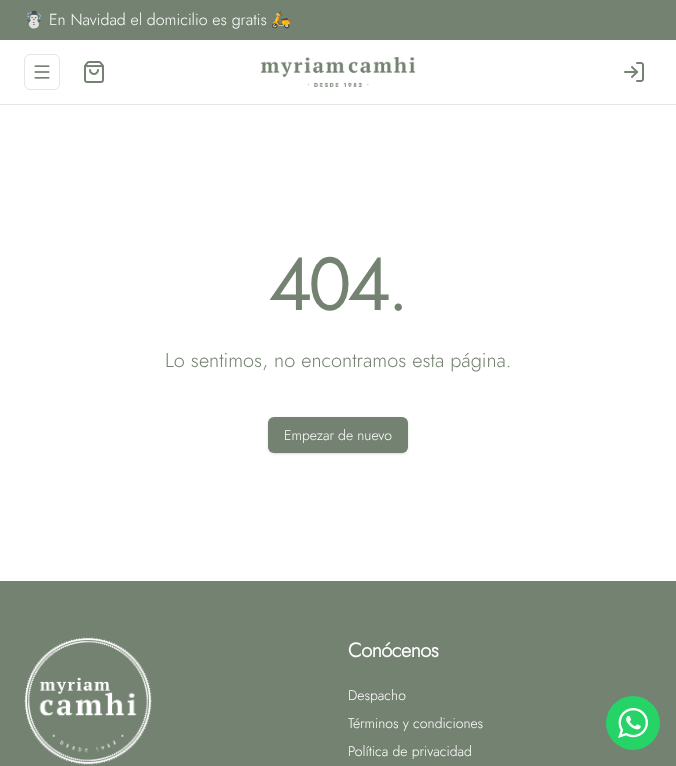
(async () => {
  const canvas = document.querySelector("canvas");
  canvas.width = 676;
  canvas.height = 766;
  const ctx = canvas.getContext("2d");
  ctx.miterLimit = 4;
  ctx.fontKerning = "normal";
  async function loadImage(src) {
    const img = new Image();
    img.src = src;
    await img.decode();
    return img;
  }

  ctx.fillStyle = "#ffffff";
  ctx.fillRect(0, 0, 676, 766);
  ctx.fillStyle = "#748271";
  ctx.fillRect(0, 0, 676, 40);
  ctx.fillStyle = "#e5e5e5";
  ctx.fillRect(0, 104, 676, 1);
  ctx.beginPath();
  ctx.roundRect(24.5, 54.5, 35, 35, 5.5);
  ctx.strokeStyle = "#e5e5e5";
  ctx.stroke();
  ctx.drawImage(await loadImage("img/1.png"), 34, 65, 16, 14);
  ctx.drawImage(await loadImage("img/2.png"), 84, 61, 20, 22);
  ctx.drawImage(await loadImage("img/3.png"), 261, 57, 154, 30);
  ctx.drawImage(await loadImage("img/4.png"), 624, 62, 20, 20);
  ctx.fillStyle = "rgba(0, 0, 0, 0.1)";
  ctx.filter = "blur(1px)";
  ctx.beginPath();
  ctx.roundRect(269, 419, 138, 34, 5);
  ctx.fill();
  ctx.filter = "none";
  ctx.filter = "blur(1.5px)";
  ctx.beginPath();
  ctx.roundRect(268, 418, 140, 36, 6);
  ctx.fill();
  ctx.filter = "none";
  ctx.fillStyle = "#748271";
  ctx.beginPath();
  ctx.roundRect(268, 417, 140, 36, 6);
  ctx.fill();
  ctx.fillRect(0, 581, 676, 185);
  ctx.drawImage(await loadImage("img/5.png"), 24, 637, 128, 128);
  ctx.fillStyle = "#25d366";
  ctx.beginPath();
  ctx.arc(633, 723, 27, 0, Math.PI * 2);
  ctx.fill();
  ctx.drawImage(await loadImage("img/6.png"), 618, 708, 30, 30);
  ctx.font = "16px Noto Color Emoji";
  ctx.fillStyle = "#ffffff";
  ctx.fillText("☃️", 24, 25);
  ctx.font = "300 16px Jost";
  ctx.fillText("En Navidad el domicilio es gratis", 49, 25);
  ctx.font = "16px Noto Color Emoji";
  ctx.fillText("🛵", 271, 25);
  ctx.letterSpacing = "-2px";
  ctx.font = "bold 72px Jost";
  ctx.fillStyle = "#748271";
  ctx.fillText("404.", 269, 310);
  ctx.letterSpacing = "0px";
  ctx.font = "300 20px Jost";
  ctx.fillText("Lo sentimos, no encontramos esta página.", 165, 367);
  ctx.font = "300 14px Jost";
  ctx.fillStyle = "#ffffff";
  ctx.fillText("Empezar de nuevo", 284, 440);
  ctx.letterSpacing = "-0.5px";
  ctx.font = "bold 20px Jost";
  ctx.fillText("Conócenos", 348, 657);
  ctx.letterSpacing = "0px";
  ctx.font = "300 14px Jost";
  for (const [text, x, y] of [
    ["Despacho", 348, 700],
    ["Términos y condiciones", 348, 728],
    ["Política de privacidad", 348, 756],
  ]) {
    ctx.fillText(text, x, y);
  }
})();
